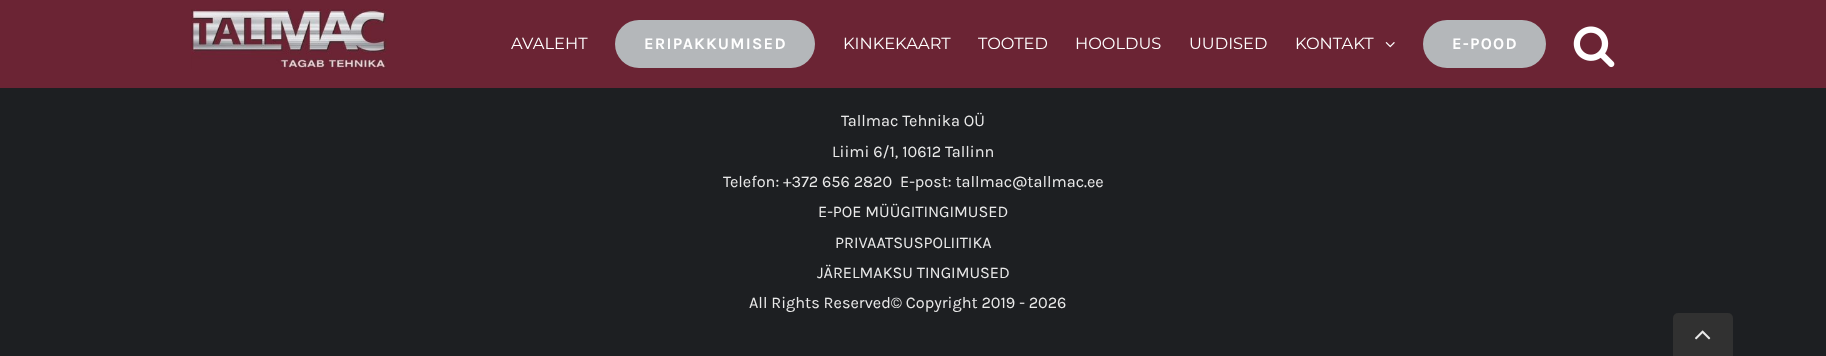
(async () => {
  const canvas = document.querySelector("canvas");
  canvas.width = 1826;
  canvas.height = 356;
  const ctx = canvas.getContext("2d");
  ctx.miterLimit = 4;
  ctx.fontKerning = "normal";
  async function loadImage(src) {
    const img = new Image();
    img.src = src;
    await img.decode();
    return img;
  }

  ctx.fillStyle = "#1d1f22";
  ctx.fillRect(0, 0, 1826, 356);
  ctx.fillStyle = "#6b2434";
  ctx.fillRect(0, 0, 1826, 88);
  ctx.drawImage(await loadImage("img/1.png"), 191, 9, 199, 60);
  ctx.fillStyle = "#b4b7ba";
  ctx.beginPath();
  ctx.roundRect(615, 20, 200, 48, 24);
  ctx.fill();
  ctx.drawImage(await loadImage("img/2.png"), 1385, 42, 10, 6);
  ctx.beginPath();
  ctx.roundRect(1423, 20, 123, 48, 24);
  ctx.fill();
  ctx.drawImage(await loadImage("img/3.png"), 1573, 26, 42, 42);
  ctx.fillStyle = "#313131";
  ctx.beginPath();
  ctx.roundRect(1673, 313, 60, 43, [5, 5, 0, 0]);
  ctx.fill();
  ctx.drawImage(await loadImage("img/4.png"), 1695, 330, 16, 10);
  ctx.font = "16.25px Montserrat";
  ctx.fillStyle = "#ffffff";
  ctx.fillText("AVALEHT", 511, 49);
  ctx.letterSpacing = "1.25px";
  ctx.font = "bold 16.25px Karla";
  ctx.fillText("ERIPAKKUMISED", 644, 49);
  ctx.letterSpacing = "0px";
  ctx.font = "16.25px Montserrat";
  for (const [text, x, y] of [
    ["KINKEKAART", 843, 49],
    ["TOOTED", 978, 49],
    ["HOOLDUS", 1075, 49],
    ["UUDISED", 1189, 49],
    ["KONTAKT", 1295, 49],
  ]) {
    ctx.fillText(text, x, y);
  }
  ctx.letterSpacing = "1.25px";
  ctx.font = "bold 16.25px Karla";
  ctx.fillText("E-POOD", 1452, 49);
  ctx.letterSpacing = "0px";
  ctx.font = "16.25px Karla";
  ctx.fillStyle = "#eaeaea";
  for (const [text, x, y] of [
    ["Tallmac Tehnika OÜ", 841, 126],
    ["Liimi 6/1, 10612 Tallinn", 832, 157],
    ["Telefon: +372 656 2820", 723, 187],
    ["E-post: tallmac@tallmac.ee", 900, 187],
    ["E-POE MÜÜGITINGIMUSED", 818, 217],
    ["PRIVAATSUSPOLIITIKA", 835, 248],
    ["JÄRELMAKSU TINGIMUSED", 817, 278],
    ["All Rights Reserved© Copyright 2019 - 2026", 749, 308],
  ]) {
    ctx.fillText(text, x, y);
  }
})();
